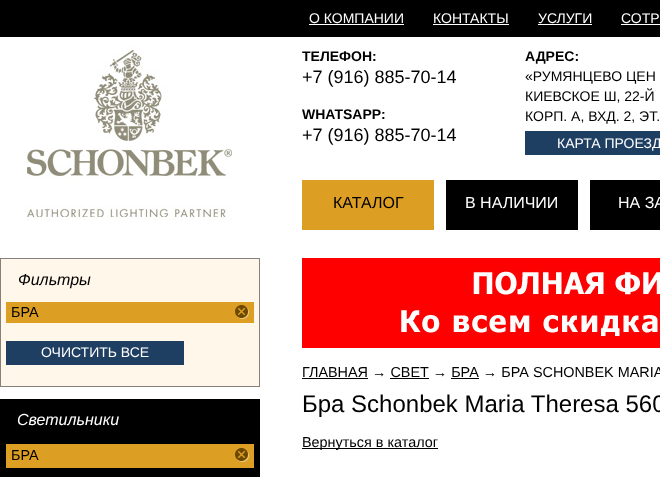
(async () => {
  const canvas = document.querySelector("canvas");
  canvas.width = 660;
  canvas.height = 477;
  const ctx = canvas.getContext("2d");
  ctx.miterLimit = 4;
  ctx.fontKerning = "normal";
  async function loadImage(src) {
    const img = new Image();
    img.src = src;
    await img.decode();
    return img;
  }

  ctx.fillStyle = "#ffffff";
  ctx.fillRect(0, 0, 660, 477);
  for (const [x, y, w, h, color] of [
    [0, 0, 660, 37, "#000000"],
    [309, 24, 95, 1, "#ffffff"],
    [433, 24, 76, 1, "#ffffff"],
    [538, 24, 54, 1, "#ffffff"],
    [621, 24, 39, 1, "#ffffff"],
  ]) {
    ctx.fillStyle = color;
    ctx.fillRect(x, y, w, h);
  }
  ctx.drawImage(await loadImage("img/1.png"), 24, 46, 208, 175);
  for (const [x, y, w, h, color] of [
    [525, 131, 135, 24, "#1e3e62"],
    [302, 180, 132, 50, "#dd9f23"],
    [446, 180, 132, 50, "#000000"],
    [590, 180, 70, 50, "#000000"],
    [1, 259, 258, 127, "#fff7e9"],
    [0, 258, 260, 1, "#85817a"],
    [259, 258, 1, 129, "#85817a"],
    [0, 258, 1, 68, "#85817a"],
    [6, 302, 248, 21, "#dd9f23"],
  ]) {
    ctx.fillStyle = color;
    ctx.fillRect(x, y, w, h);
  }
  ctx.drawImage(await loadImage("img/2.png"), 235, 305, 14, 14);
  for (const [x, y, w, h, color] of [
    [0, 386, 260, 1, "#85817a"],
    [0, 326, 1, 61, "#85817a"],
    [6, 341, 178, 24, "#1e3e62"],
    [0, 399, 260, 78, "#000000"],
    [6, 444, 248, 24, "#dd9f23"],
  ]) {
    ctx.fillStyle = color;
    ctx.fillRect(x, y, w, h);
  }
  ctx.drawImage(await loadImage("img/2.png"), 235, 448, 14, 14);
  ctx.drawImage(await loadImage("img/3.png"), 302, 258, 358, 90);
  for (const [x, y, w, h, color] of [
    [302, 378, 66, 1, "#000000"],
    [390, 378, 39, 1, "#000000"],
    [451, 378, 28, 1, "#000000"],
    [302, 448, 136, 1, "#000000"],
  ]) {
    ctx.fillStyle = color;
    ctx.fillRect(x, y, w, h);
  }
  ctx.font = "14px Liberation Sans";
  ctx.fillStyle = "#ffffff";
  for (const [text, x, y] of [
    ["О КОМПАНИИ", 309, 23],
    ["КОНТАКТЫ", 433, 23],
    ["УСЛУГИ", 538, 23],
    ["СОТР", 621, 23],
  ]) {
    ctx.fillText(text, x, y);
  }
  ctx.font = "bold 14px Liberation Sans";
  ctx.fillStyle = "#000000";
  ctx.fillText("ТЕЛЕФОН:", 302, 61);
  ctx.font = "18px Liberation Sans";
  ctx.fillText("+7 (916) 885-70-14", 302, 83);
  ctx.font = "bold 14px Liberation Sans";
  ctx.fillText("WHATSAPP:", 302, 119);
  ctx.font = "18px Liberation Sans";
  ctx.fillText("+7 (916) 885-70-14", 302, 141);
  ctx.font = "bold 14px Liberation Sans";
  ctx.fillText("АДРЕС:", 525, 61);
  ctx.font = "14px Liberation Sans";
  for (const [text, x, y] of [
    ["«РУМЯНЦЕВО ЦЕН", 525, 81],
    ["КИЕВСКОЕ Ш, 22-Й", 525, 101],
    ["КОРП. А, ВХД. 2, ЭТ.", 525, 121],
  ]) {
    ctx.fillText(text, x, y);
  }
  ctx.fillStyle = "#ffffff";
  ctx.fillText("КАРТА ПРОЕЗД", 557, 148);
  ctx.font = "16px Liberation Sans";
  ctx.fillStyle = "#000000";
  ctx.fillText("КАТАЛОГ", 333, 208);
  ctx.fillStyle = "#ffffff";
  ctx.fillText("В НАЛИЧИИ", 465, 208);
  ctx.fillText("НА ЗА", 618, 208);
  ctx.font = "italic 16px Liberation Sans";
  ctx.fillStyle = "#000000";
  ctx.fillText("Фильтры", 18, 285);
  ctx.font = "14.4px Liberation Sans";
  ctx.fillText("БРА", 11, 317);
  ctx.font = "14px Liberation Sans";
  ctx.fillStyle = "#ffffff";
  ctx.fillText("ОЧИСТИТЬ ВСЕ", 41, 357);
  ctx.font = "italic 16px Liberation Sans";
  ctx.fillText("Светильники", 17, 425);
  ctx.font = "14.4px Liberation Sans";
  ctx.fillStyle = "#000000";
  ctx.fillText("БРА", 11, 460);
  ctx.fillText("ГЛАВНАЯ → СВЕТ → БРА → БРА SCHONBEK MARIA", 302, 377);
  ctx.font = "24px Liberation Sans";
  ctx.fillText("Бра Schonbek Maria Theresa 560", 302, 412);
  ctx.font = "14.4px Liberation Sans";
  ctx.fillText("Вернуться в каталог", 302, 447);
})();
